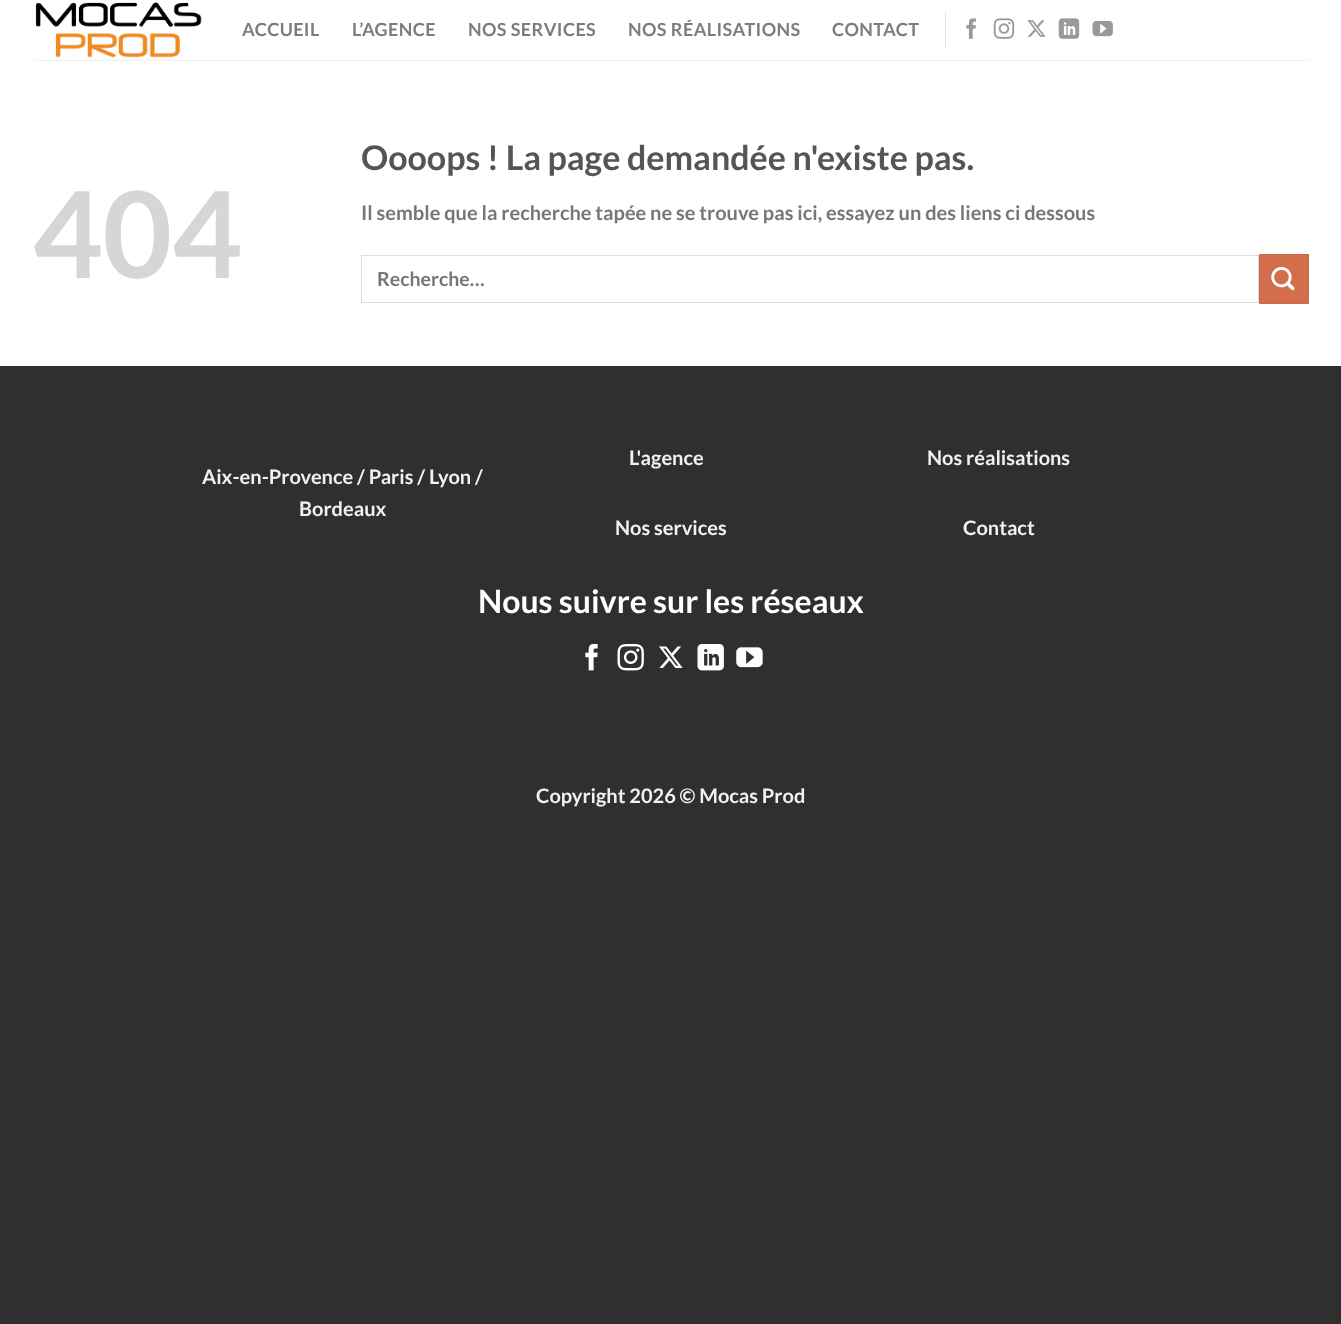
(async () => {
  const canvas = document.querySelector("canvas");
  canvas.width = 1341;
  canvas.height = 1324;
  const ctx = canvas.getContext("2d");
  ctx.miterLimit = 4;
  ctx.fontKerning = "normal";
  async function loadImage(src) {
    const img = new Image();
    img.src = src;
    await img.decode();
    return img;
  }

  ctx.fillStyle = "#2f2f2f";
  ctx.fillRect(0, 0, 1341, 1324);
  ctx.fillStyle = "#ffffff";
  ctx.fillRect(0, 0, 1341, 366);
  ctx.drawImage(await loadImage("img/1.png"), 35, 2, 167, 56);
  ctx.fillStyle = "#e6e6e6";
  ctx.fillRect(945, 11, 1, 38);
  ctx.drawImage(await loadImage("img/2.png"), 966, 18, 10, 21);
  ctx.drawImage(await loadImage("img/3.png"), 993, 18, 22, 21);
  ctx.drawImage(await loadImage("img/4.png"), 1027, 20, 19, 17);
  ctx.drawImage(await loadImage("img/5.png"), 1058, 18, 22, 21);
  ctx.drawImage(await loadImage("img/6.png"), 1092, 20, 21, 17);
  ctx.fillStyle = "#f1f1f1";
  ctx.fillRect(34, 60, 1275, 1);
  ctx.strokeStyle = "#dddddd";
  ctx.strokeRect(361.5, 255.5, 897, 47);
  ctx.fillStyle = "#d26e4b";
  ctx.beginPath();
  ctx.rect(1259.5, 254.5, 49, 49);
  ctx.fill();
  ctx.strokeStyle = "#c86947";
  ctx.stroke();
  ctx.drawImage(await loadImage("img/7.png"), 1271, 266, 24, 25);
  ctx.drawImage(await loadImage("img/8.png"), 585, 644, 13, 27);
  ctx.drawImage(await loadImage("img/9.png"), 617, 644, 27, 27);
  ctx.drawImage(await loadImage("img/10.png"), 659, 646, 24, 22);
  ctx.drawImage(await loadImage("img/11.png"), 697, 644, 27, 27);
  ctx.drawImage(await loadImage("img/12.png"), 736, 647, 27, 21);
  ctx.letterSpacing = "0.4px";
  ctx.font = "bold 18px Lato";
  ctx.fillStyle = "#7d7d7d";
  for (const [text, x, y] of [
    ["ACCUEIL", 242, 36],
    ["L’AGENCE", 352, 36],
    ["NOS SERVICES", 468, 36],
    ["NOS RÉALISATIONS", 628, 36],
    ["CONTACT", 832, 36],
  ]) {
    ctx.fillText(text, x, y);
  }
  ctx.letterSpacing = "0px";
  ctx.font = "bold 120px Lato";
  ctx.fillStyle = "#d6d6d6";
  ctx.fillText("404", 33, 278);
  ctx.font = "bold 34px Lato";
  ctx.fillStyle = "#555555";
  ctx.fillText("Oooops ! La page demandée n'existe pas.", 361, 170);
  ctx.font = "bold 20px Lato";
  ctx.fillStyle = "#777777";
  ctx.fillText("Il semble que la recherche tapée ne se trouve pas ici, essayez un des liens ci dessous", 361, 220);
  ctx.font = "bold 19.5px Lato";
  ctx.fillText("Recherche…", 377, 286);
  ctx.font = "bold 20px Lato";
  ctx.fillStyle = "#f1f1f1";
  for (const [text, x, y] of [
    ["Aix-en-Provence / Paris / Lyon /", 202, 484],
    ["Bordeaux", 299, 516],
    ["L'agence", 629, 465],
    ["Nos services", 615, 535],
    ["Nos réalisations", 927, 465],
    ["Contact", 963, 535],
  ]) {
    ctx.fillText(text, x, y);
  }
  ctx.font = "bold 32px Lato";
  ctx.fillStyle = "#ffffff";
  ctx.fillText("Nous suivre sur les réseaux", 478, 613);
  ctx.font = "bold 20px Lato";
  ctx.fillStyle = "#f1f1f1";
  ctx.fillText("Copyright 2026 © Mocas Prod", 536, 803);
})();
